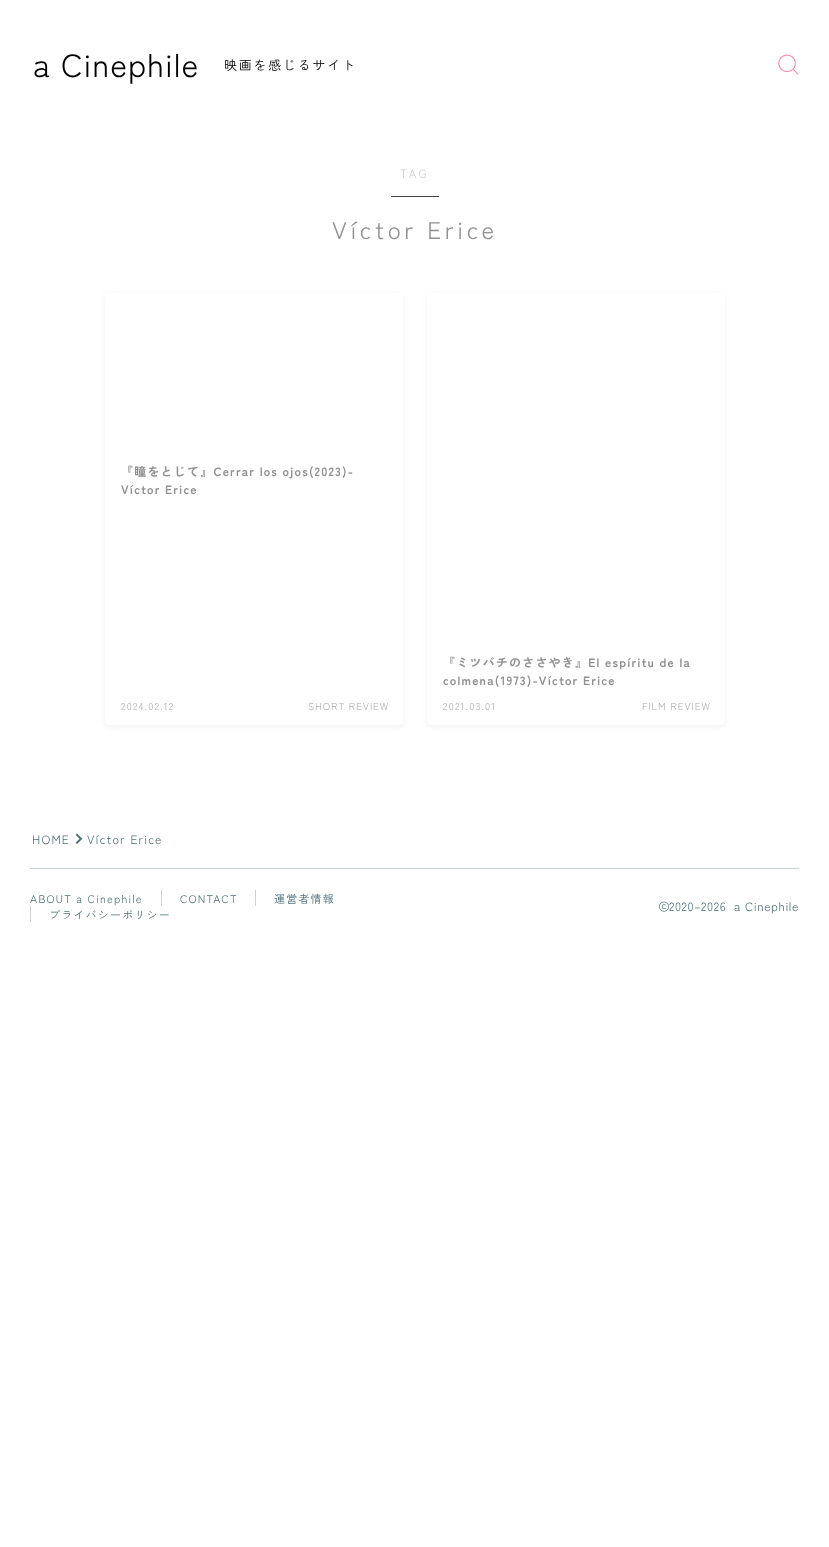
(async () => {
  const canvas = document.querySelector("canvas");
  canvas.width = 829;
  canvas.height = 1547;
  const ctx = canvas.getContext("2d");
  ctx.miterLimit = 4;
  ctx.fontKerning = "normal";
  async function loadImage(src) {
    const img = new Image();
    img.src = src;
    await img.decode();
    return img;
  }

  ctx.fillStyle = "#ffffff";
  ctx.fillRect(0, 0, 829, 1547);
  ctx.drawImage(await loadImage("img/1.png"), 778, 54, 21, 21);
  ctx.fillStyle = "#444444";
  ctx.fillRect(391, 196, 48, 1);
  ctx.fillStyle = "rgba(170, 170, 170, 0.15)";
  ctx.filter = "blur(3px)";
  ctx.beginPath();
  ctx.roundRect(105, 295, 298, 432, 4);
  ctx.fill();
  ctx.filter = "none";
  ctx.fillStyle = "#ffffff";
  ctx.beginPath();
  ctx.roundRect(105, 293, 298, 432, 4);
  ctx.fill();
  ctx.fillStyle = "rgba(170, 170, 170, 0.15)";
  ctx.filter = "blur(3px)";
  ctx.beginPath();
  ctx.roundRect(427, 295, 298, 432, 4);
  ctx.fill();
  ctx.filter = "none";
  ctx.fillStyle = "#ffffff";
  ctx.beginPath();
  ctx.roundRect(427, 293, 298, 432, 4);
  ctx.fill();
  ctx.drawImage(await loadImage("img/2.png"), 75, 833, 8, 11);
  for (const [x, y, w, h, color] of [
    [30, 868, 769, 1, "#cad4d7"],
    [161, 890, 1, 16, "#cad4d7"],
    [255, 890, 1, 16, "#cad4d7"],
    [30, 906, 1, 16, "#cad4d7"],
  ]) {
    ctx.fillStyle = color;
    ctx.fillRect(x, y, w, h);
  }
  ctx.drawImage(await loadImage("img/3.png"), 659, 901, 10, 11);
  ctx.letterSpacing = "1px";
  ctx.font = "32px Zen Kaku Gothic New";
  ctx.fillStyle = "#000000";
  ctx.fillText("a Cinephile", 33, 77);
  ctx.letterSpacing = "1.75px";
  ctx.font = "13px Zen Kaku Gothic New";
  ctx.fillText("映画を感じるサイト", 224, 70);
  ctx.letterSpacing = "2.5px";
  ctx.font = "12px Zen Kaku Gothic New";
  ctx.fillStyle = "#cecece";
  ctx.fillText("TAG", 400, 178);
  ctx.letterSpacing = "3.6px";
  ctx.font = "24px Zen Kaku Gothic New";
  ctx.fillStyle = "#919191";
  ctx.fillText("Víctor Erice", 332, 239);
  ctx.letterSpacing = "1.2px";
  ctx.font = "bold 12px Zen Kaku Gothic New";
  ctx.fillText("『瞳をとじて』Cerrar los ojos(2023)-", 121, 476);
  ctx.fillText("Víctor Erice", 121, 494);
  ctx.font = "10px Zen Kaku Gothic New";
  ctx.fillStyle = "#adadad";
  ctx.fillText("2024.02.12", 121, 710);
  ctx.letterSpacing = "0.9px";
  ctx.fillText("SHORT REVIEW", 308, 710);
  ctx.letterSpacing = "1.2px";
  ctx.font = "bold 12px Zen Kaku Gothic New";
  ctx.fillStyle = "#919191";
  ctx.fillText("『ミツバチのささやき』El espíritu de la", 443, 667);
  ctx.fillText("colmena(1973)-Víctor Erice", 443, 685);
  ctx.font = "10px Zen Kaku Gothic New";
  ctx.fillStyle = "#adadad";
  ctx.fillText("2021.03.01", 443, 710);
  ctx.letterSpacing = "0.9px";
  ctx.fillText("FILM REVIEW", 642, 710);
  ctx.letterSpacing = "1.2px";
  ctx.font = "12px Zen Kaku Gothic New";
  ctx.fillStyle = "#4e7079";
  ctx.fillText("HOME", 32, 844);
  ctx.fillText("Víctor Erice", 87, 844);
  ctx.font = "11px Zen Kaku Gothic New";
  for (const [text, x, y] of [
    ["ABOUT a Cinephile", 30, 903],
    ["CONTACT", 180, 903],
    ["運営者情報", 274, 903],
    ["プライバシーポリシー", 49, 919],
  ]) {
    ctx.fillText(text, x, y);
  }
  ctx.letterSpacing = "0.6px";
  ctx.font = "12px Zen Kaku Gothic New";
  ctx.fillText("2020–2026  a Cinephile", 669, 911);
})();
